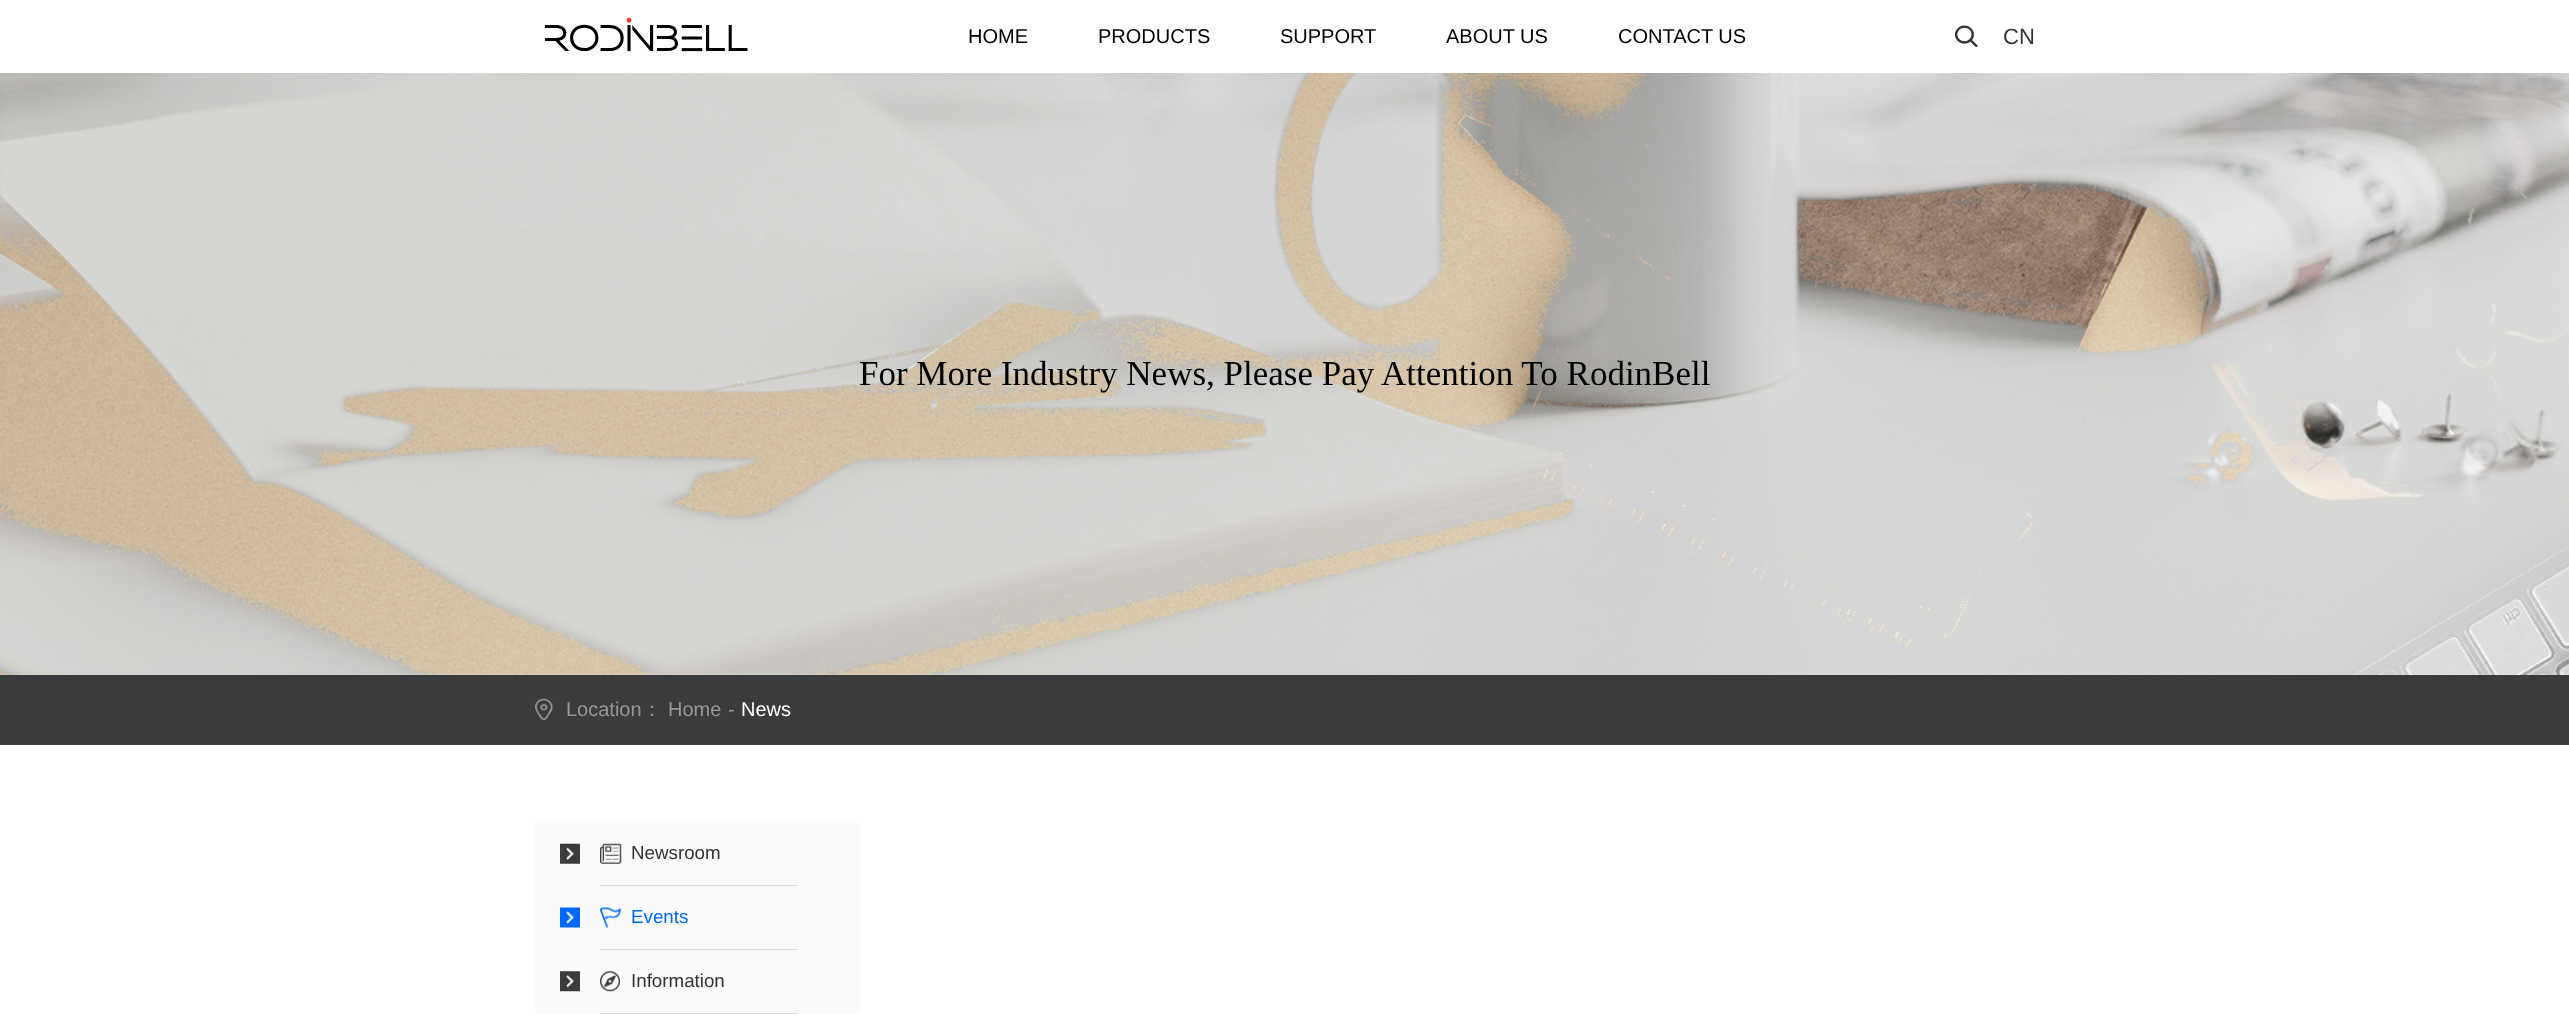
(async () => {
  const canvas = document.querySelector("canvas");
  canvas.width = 2569;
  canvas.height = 1030;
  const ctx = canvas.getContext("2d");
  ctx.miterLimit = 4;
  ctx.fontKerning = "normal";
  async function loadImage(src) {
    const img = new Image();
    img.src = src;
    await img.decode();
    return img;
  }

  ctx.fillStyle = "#ffffff";
  ctx.fillRect(0, 0, 2569, 1030);
  ctx.drawImage(await loadImage("img/1.png"), 545, 17, 203, 35);
  ctx.drawImage(await loadImage("img/2.png"), 1955, 25, 23, 22);
  ctx.drawImage(await loadImage("img/3.png"), 0, 73, 2569, 602);
  ctx.fillStyle = "#393b3d";
  ctx.fillRect(0, 675, 2569, 70);
  ctx.drawImage(await loadImage("img/4.png"), 535, 698, 18, 22);
  ctx.fillStyle = "#fafafa";
  ctx.fillRect(535, 823, 325, 191);
  ctx.drawImage(await loadImage("img/5.png"), 560, 843, 20, 21);
  ctx.drawImage(await loadImage("img/6.png"), 600, 843, 22, 21);
  ctx.fillStyle = "#dddddd";
  ctx.fillRect(600, 885, 198, 1);
  ctx.drawImage(await loadImage("img/7.png"), 560, 907, 20, 21);
  ctx.drawImage(await loadImage("img/8.png"), 600, 907, 22, 21);
  ctx.fillRect(600, 949, 198, 1);
  ctx.drawImage(await loadImage("img/9.png"), 560, 971, 20, 21);
  ctx.drawImage(await loadImage("img/10.png"), 600, 971, 20, 21);
  ctx.fillRect(600, 1013, 198, 1);
  ctx.font = "20px Liberation Sans";
  ctx.fillStyle = "#000000";
  for (const [text, x, y] of [
    ["HOME", 968, 43],
    ["PRODUCTS", 1098, 43],
    ["SUPPORT", 1280, 43],
    ["ABOUT US", 1446, 43],
    ["CONTACT US", 1618, 43],
  ]) {
    ctx.fillText(text, x, y);
  }
  ctx.font = "22px Liberation Sans";
  ctx.fillStyle = "#333333";
  ctx.fillText("CN", 2003, 44);
  ctx.font = "35px Liberation Serif";
  ctx.fillStyle = "#000000";
  ctx.fillText("For More Industry News, Please Pay Attention To RodinBell", 859, 385);
  ctx.font = "20px Liberation Sans";
  ctx.fillStyle = "#979798";
  ctx.fillText("Location", 566, 716);
  ctx.font = "500 20px WenQuanYi Zen Hei";
  ctx.fillText("：", 642, 716);
  ctx.font = "20px Liberation Sans";
  ctx.fillText("Home", 668, 716);
  ctx.fillText("-", 728, 716);
  ctx.fillStyle = "#ffffff";
  ctx.fillText("News", 741, 716);
  ctx.font = "18.75px Liberation Sans";
  ctx.fillStyle = "#333333";
  ctx.fillText("Newsroom", 631, 859);
  ctx.fillStyle = "#0068ff";
  ctx.fillText("Events", 631, 923);
  ctx.fillStyle = "#333333";
  ctx.fillText("Information", 631, 987);
})();
